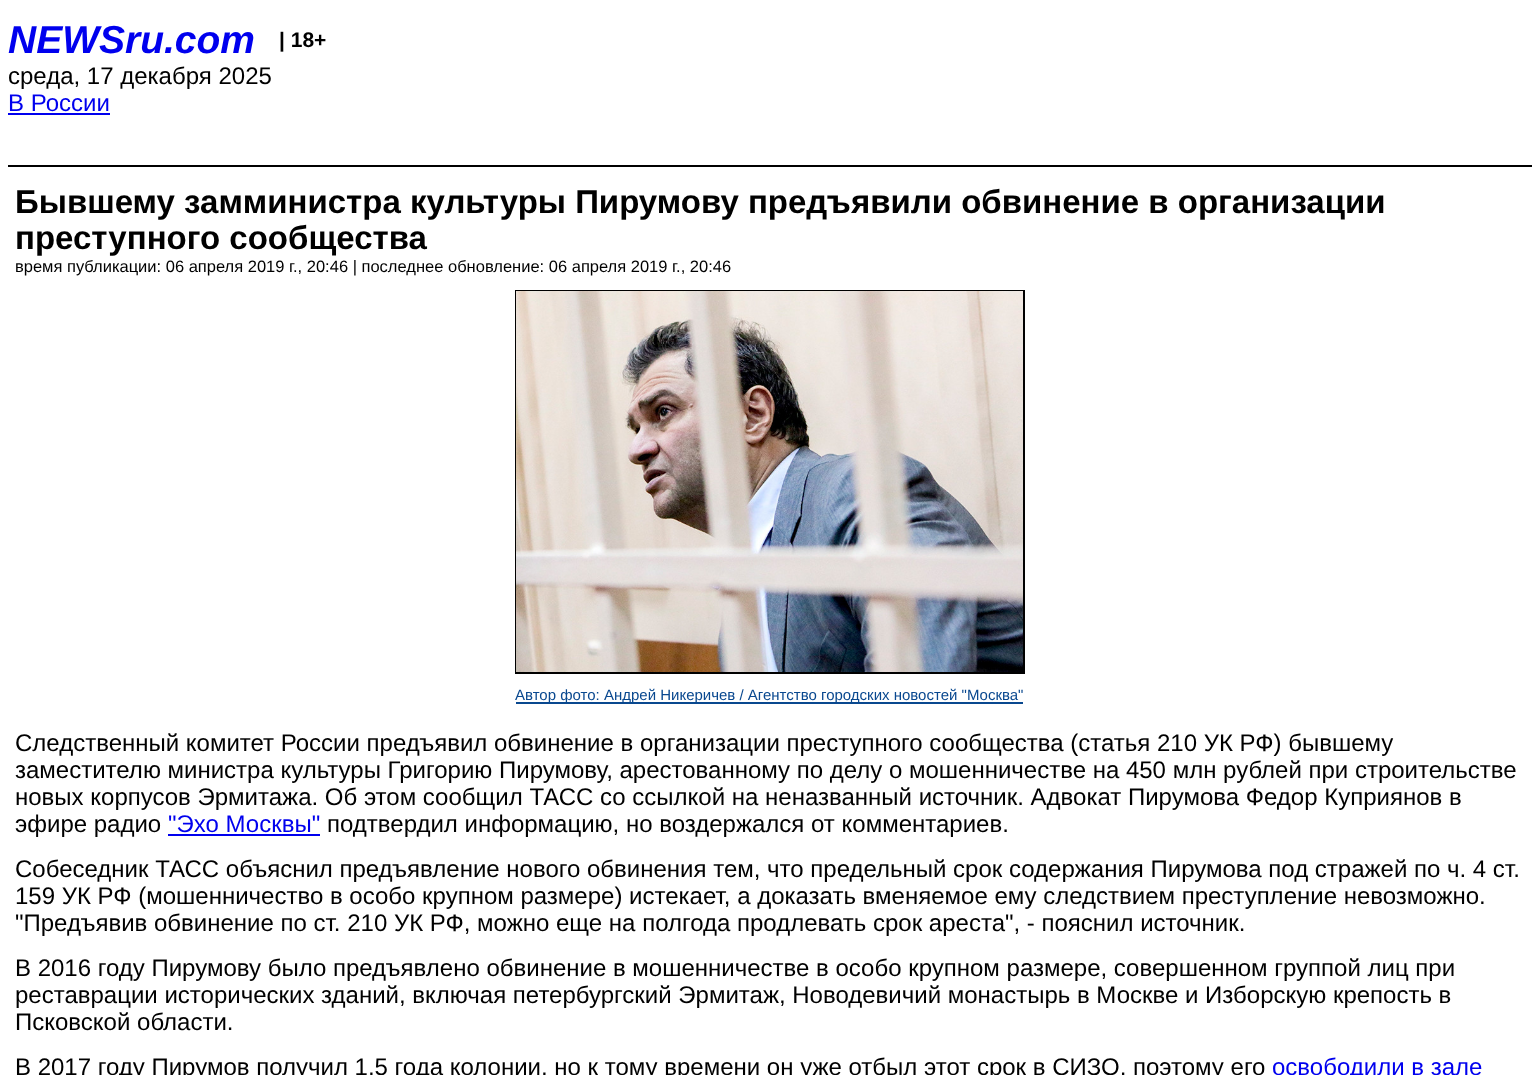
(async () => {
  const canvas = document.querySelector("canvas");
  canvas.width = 1539;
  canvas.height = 1075;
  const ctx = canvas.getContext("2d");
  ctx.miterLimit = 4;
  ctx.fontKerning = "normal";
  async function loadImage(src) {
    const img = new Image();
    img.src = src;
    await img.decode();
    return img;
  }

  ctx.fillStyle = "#ffffff";
  ctx.fillRect(0, 0, 1539, 1075);
  ctx.fillStyle = "#000000";
  ctx.fillRect(8, 165, 1524, 2);
  ctx.fillStyle = "#0000ee";
  ctx.fillRect(8, 113, 102, 2);
  ctx.strokeStyle = "#000000";
  ctx.lineWidth = 2;
  ctx.strokeRect(516, 291, 508, 382);
  ctx.drawImage(await loadImage("img/1.png"), 516, 291, 507, 381);
  ctx.fillStyle = "#09488f";
  ctx.fillRect(516, 702, 507, 2);
  ctx.fillStyle = "#0000ee";
  ctx.fillRect(168, 834, 152, 2);
  ctx.font = "italic bold 39px Liberation Sans";
  ctx.fillText("NEWSru.com", 8, 53);
  ctx.font = "bold 21px Liberation Sans";
  ctx.fillStyle = "#000000";
  ctx.fillText("| 18+", 279, 47);
  ctx.font = "24px Liberation Sans";
  ctx.fillText("среда, 17 декабря 2025", 8, 84);
  ctx.fillStyle = "#0000ee";
  ctx.fillText("В России", 8, 111);
  ctx.font = "bold 33px Liberation Sans";
  ctx.fillStyle = "#000000";
  ctx.fillText("Бывшему замминистра культуры Пирумову предъявили обвинение в организации", 15, 213);
  ctx.fillText("преступного сообщества", 15, 249);
  ctx.font = "16.5px Liberation Sans";
  ctx.fillText("время публикации: 06 апреля 2019 г., 20:46 | последнее обновление: 06 апреля 2019 г., 20:46", 15, 272);
  ctx.font = "15px Liberation Sans";
  ctx.fillStyle = "#09488f";
  ctx.fillText("Автор фото: Андрей Никеричев / Агентство городских новостей \"Москва\"", 515, 700);
  ctx.font = "24px Liberation Sans";
  ctx.fillStyle = "#000000";
  for (const [text, x, y] of [
    ["Следственный комитет России предъявил обвинение в организации преступного сообщества (статья 210 УК РФ) бывшему", 15, 751],
    ["заместителю министра культуры Григорию Пирумову, арестованному по делу о мошенничестве на 450 млн рублей при строительстве", 15, 778],
    ["новых корпусов Эрмитажа. Об этом сообщил ТАСС со ссылкой на неназванный источник. Адвокат Пирумова Федор Куприянов в", 15, 805],
    ["эфире радио", 15, 832],
  ]) {
    ctx.fillText(text, x, y);
  }
  ctx.fillStyle = "#0000ee";
  ctx.fillText("\"Эхо Москвы\"", 168, 832);
  ctx.fillStyle = "#000000";
  for (const [text, x, y] of [
    ["подтвердил информацию, но воздержался от комментариев.", 327, 832],
    ["Собеседник ТАСС объяснил предъявление нового обвинения тем, что предельный срок содержания Пирумова под стражей по ч. 4 ст.", 15, 877],
    ["159 УК РФ (мошенничество в особо крупном размере) истекает, а доказать вменяемое ему следствием преступление невозможно.", 15, 904],
    ["\"Предъявив обвинение по ст. 210 УК РФ, можно еще на полгода продлевать срок ареста\", - пояснил источник.", 15, 931],
    ["В 2016 году Пирумову было предъявлено обвинение в мошенничестве в особо крупном размере, совершенном группой лиц при", 15, 976],
    ["реставрации исторических зданий, включая петербургский Эрмитаж, Новодевичий монастырь в Москве и Изборскую крепость в", 15, 1003],
    ["Псковской области.", 15, 1030],
    ["В 2017 году Пирумов получил 1,5 года колонии, но к тому времени он уже отбыл этот срок в СИЗО, поэтому его", 15, 1075],
  ]) {
    ctx.fillText(text, x, y);
  }
  ctx.fillStyle = "#0000ee";
  ctx.fillText("освободили в зале", 1272, 1075);
})();
